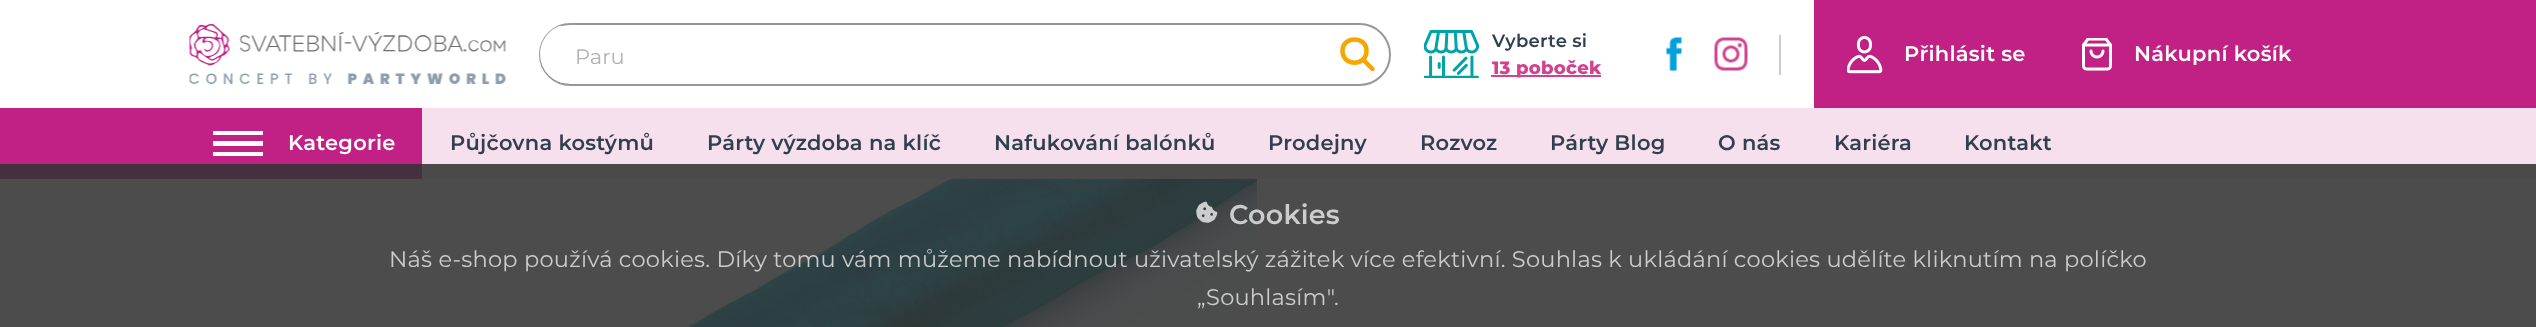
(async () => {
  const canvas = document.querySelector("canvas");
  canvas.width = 2536;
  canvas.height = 327;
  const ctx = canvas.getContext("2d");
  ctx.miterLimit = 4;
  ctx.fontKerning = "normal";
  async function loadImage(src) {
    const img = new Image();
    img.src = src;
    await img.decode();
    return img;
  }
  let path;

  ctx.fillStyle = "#ffffff";
  ctx.fillRect(0, 0, 2536, 327);
  ctx.drawImage(await loadImage("img/1.png"), 189, 24, 317, 60);
  ctx.beginPath();
  ctx.roundRect(540, 24, 850, 61, 30.5);
  ctx.strokeStyle = "#979797";
  ctx.lineWidth = 2;
  ctx.stroke();
  ctx.save();
  ctx.beginPath();
  ctx.roundRect(540, 24, 849, 60, 30);
  ctx.clip();
  ctx.beginPath();
  ctx.roundRect(540, 26, 786, 57, 8);
  ctx.fill();
  ctx.restore();
  path = new Path2D("M1366.5 51C1366.5 66.5 1342.5 66.5 1342.5 51C1342.5 35.5 1366.5 35.5 1366.5 51ZM1372.5 69L1363.5 60");
  ctx.strokeStyle = "#f7a600";
  ctx.lineWidth = 4.5;
  ctx.lineCap = "round";
  ctx.lineJoin = "round";
  ctx.stroke(path);
  ctx.drawImage(await loadImage("img/2.png"), 1424, 30, 55, 48);
  ctx.fillStyle = "#d24291";
  ctx.fillRect(1491, 75, 110, 2);
  ctx.drawImage(await loadImage("img/3.png"), 1666, 37, 16, 34);
  ctx.drawImage(await loadImage("img/4.png"), 1714, 37, 34, 34);
  ctx.fillStyle = "#cccccc";
  ctx.fillRect(1779, 35, 2, 40);
  ctx.fillStyle = "#c12085";
  ctx.fillRect(1814, 0, 722, 108);
  ctx.drawImage(await loadImage("img/5.png"), 1847, 36, 36, 38);
  ctx.drawImage(await loadImage("img/6.png"), 2082, 38, 30, 33);
  for (const [x, y, w, h, color] of [
    [422, 108, 2114, 71, "#f7e0ee"],
    [0, 108, 422, 71, "#c12085"],
    [213, 131, 50, 4, "#ffffff"],
    [213, 141, 50, 5, "#ffffff"],
    [213, 152, 50, 4, "#ffffff"],
  ]) {
    ctx.fillStyle = color;
    ctx.fillRect(x, y, w, h);
  }
  ctx.drawImage(await loadImage("img/7.png"), 684, 179, 573, 148);
  ctx.fillStyle = "rgba(51, 51, 51, 0.88)";
  ctx.fillRect(0, 164, 2536, 163);
  ctx.drawImage(await loadImage("img/8.png"), 1196, 201, 22, 22);
  ctx.font = "21px Montserrat";
  ctx.fillStyle = "#b3b3b3";
  ctx.fillText("Paru", 575, 64);
  ctx.letterSpacing = "0.24px";
  ctx.font = "600 18px Montserrat";
  ctx.fillStyle = "#31404e";
  ctx.fillText("Vyberte si", 1492, 47);
  ctx.font = "800 18px Montserrat";
  ctx.fillStyle = "#d24291";
  ctx.fillText("13 poboček", 1492, 74);
  ctx.font = "600 21px Montserrat";
  ctx.fillStyle = "#ffffff";
  for (const [text, x, y] of [
    ["Přihlásit se", 1904, 61],
    ["Nákupní košík", 2134, 61],
    ["Kategorie", 288, 150],
  ]) {
    ctx.fillText(text, x, y);
  }
  ctx.fillStyle = "#31404e";
  for (const [text, x, y] of [
    ["Půjčovna kostýmů", 450, 150],
    ["Párty výzdoba na klíč", 707, 150],
    ["Nafukování balónků", 994, 150],
    ["Prodejny", 1268, 150],
    ["Rozvoz", 1420, 150],
    ["Párty Blog", 1550, 150],
    ["O nás", 1718, 150],
    ["Kariéra", 1834, 150],
    ["Kontakt", 1964, 150],
  ]) {
    ctx.fillText(text, x, y);
  }
  ctx.font = "600 27px Montserrat";
  ctx.fillStyle = "#cccccc";
  ctx.fillText("Cookies", 1229, 224);
  ctx.font = "22.5px Montserrat";
  ctx.fillText("Náš e-shop používá cookies. Díky tomu vám můžeme nabídnout uživatelský zážitek více efektivní. Souhlas k ukládání cookies udělíte kliknutím na políčko", 389, 267);
  ctx.fillText("„Souhlasím\".", 1197, 305);
})();
